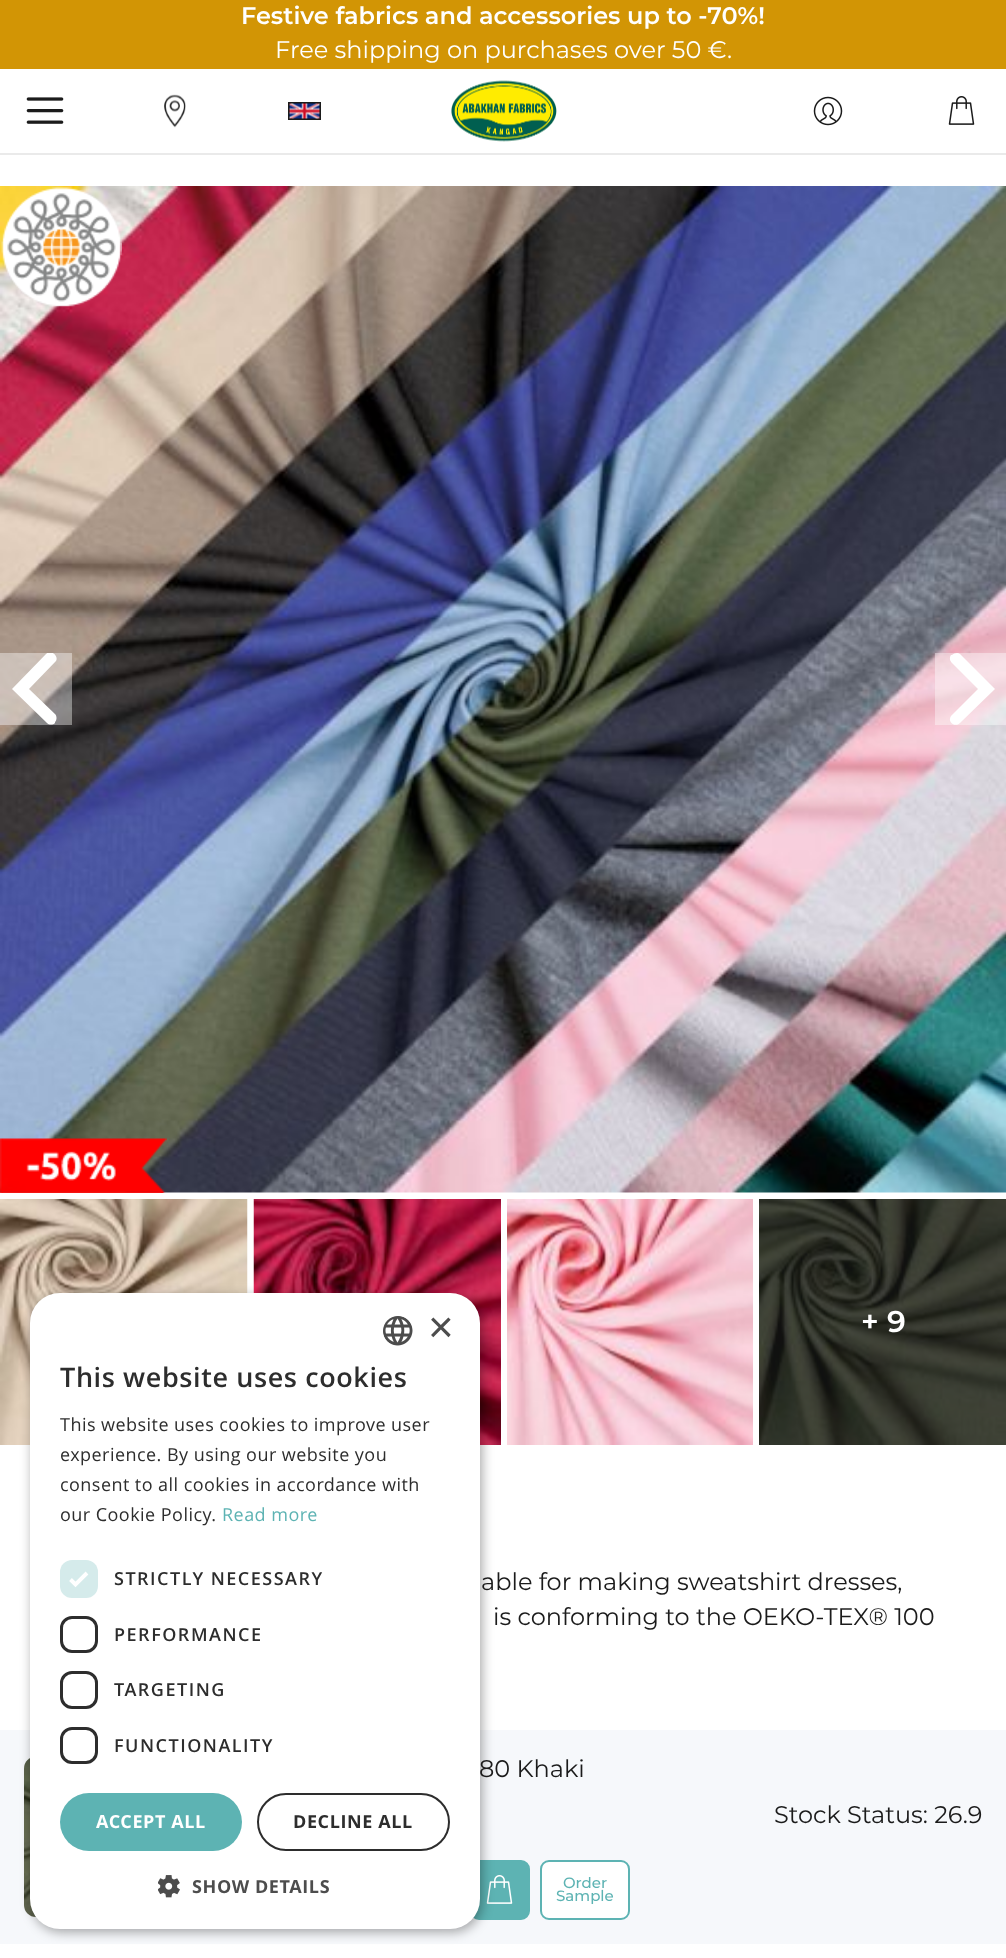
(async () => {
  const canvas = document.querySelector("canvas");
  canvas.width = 1006;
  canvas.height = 1958;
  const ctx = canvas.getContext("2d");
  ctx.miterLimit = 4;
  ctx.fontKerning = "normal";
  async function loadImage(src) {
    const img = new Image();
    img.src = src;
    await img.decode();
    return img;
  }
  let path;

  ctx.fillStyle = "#ffffff";
  ctx.fillRect(0, 0, 1006, 1958);
  ctx.fillStyle = "#d29505";
  ctx.fillRect(0, 0, 1006, 69);
  ctx.drawImage(await loadImage("img/12.png"), 0, 1199, 248, 246);
  ctx.drawImage(await loadImage("img/13.png"), 253, 1199, 248, 246);
  ctx.fillStyle = "#f6f8fb";
  ctx.fillRect(0, 1730, 1006, 214);
  ctx.drawImage(await loadImage("img/16.png"), 24, 1758, 12, 159);
  ctx.fillStyle = "#5db3b3";
  ctx.beginPath();
  ctx.roundRect(471, 1861, 58, 58, 8);
  ctx.fill();
  ctx.strokeStyle = "#5db3b3";
  ctx.lineWidth = 2;
  ctx.stroke();
  ctx.drawImage(await loadImage("img/17.png"), 486, 1875, 27, 29);
  ctx.fillStyle = "rgba(0, 0, 0, 0.35)";
  ctx.filter = "blur(6px)";
  ctx.beginPath();
  ctx.roundRect(32, 1296, 450, 636, 30);
  ctx.fill();
  ctx.filter = "none";
  ctx.fillStyle = "#ffffff";
  ctx.beginPath();
  ctx.roundRect(30, 1293, 450, 636, 30);
  ctx.fill();
  ctx.drawImage(await loadImage("img/1.png"), 383, 1316, 30, 30);
  ctx.fillStyle = "#d5ebeb";
  ctx.beginPath();
  ctx.roundRect(60, 1560, 38, 38, 12);
  ctx.fill();
  path = new Path2D("M70.5 1579.5L75.5 1584.5L87 1573");
  ctx.strokeStyle = "#ffffff";
  ctx.lineWidth = 3.9;
  ctx.stroke(path);
  ctx.beginPath();
  ctx.roundRect(61.5, 1617.5, 35, 34, 10.5);
  ctx.strokeStyle = "#2d2d2d";
  ctx.lineWidth = 3;
  ctx.stroke();
  ctx.beginPath();
  ctx.roundRect(61.5, 1672.5, 35, 35, 10.5);
  ctx.stroke();
  ctx.beginPath();
  ctx.roundRect(61.5, 1728.5, 35, 34, 10.5);
  ctx.stroke();
  ctx.fillStyle = "#5db3b3";
  ctx.beginPath();
  ctx.roundRect(60, 1793, 182, 58, 29);
  ctx.fill();
  ctx.beginPath();
  ctx.roundRect(258, 1794, 191, 56, 28);
  ctx.lineWidth = 2;
  ctx.stroke();
  ctx.drawImage(await loadImage("img/2.png"), 158, 1875, 22, 23);
  ctx.fillStyle = "#eaeaea";
  ctx.fillRect(0, 153, 1006, 2);
  ctx.drawImage(await loadImage("img/3.png"), 26, 97, 38, 27);
  ctx.drawImage(await loadImage("img/4.png"), 164, 94, 22, 34);
  ctx.strokeStyle = "#1b1b1b";
  ctx.strokeRect(289, 103, 31, 16);
  ctx.drawImage(await loadImage("img/5.png"), 289, 103, 31, 16);
  ctx.drawImage(await loadImage("img/6.png"), 451, 80, 106, 62);
  ctx.drawImage(await loadImage("img/7.png"), 813, 96, 30, 30);
  ctx.drawImage(await loadImage("img/8.png"), 948, 96, 27, 29);
  ctx.drawImage(await loadImage("img/9.png"), 0, 186, 1006, 1007);
  ctx.drawImage(await loadImage("img/10.png"), 1, 187, 121, 120);
  ctx.fillStyle = "rgba(255, 255, 255, 0.4)";
  ctx.fillRect(0, 653, 72, 72);
  ctx.save();
  ctx.beginPath();
  ctx.rect(0, 653, 72, 72);
  ctx.clip();
  ctx.fillStyle = "#ffffff";
  path = new Path2D("M46 654C51 649 59 656 56 661L29 689L55 714C57 716 57 720 55 722V723C53 725 49 725 47 723L12 689Z");
  ctx.fill(path);
  ctx.restore();
  ctx.fillRect(935, 653, 71, 72);
  ctx.fillStyle = "#ffffff";
  path = new Path2D("M960 723C955 728 947 722 951 716L978 689L952 663C950 661 949 658 951 655H952C954 653 958 652 960 654L995 689Z");
  ctx.fill(path);
  ctx.drawImage(await loadImage("img/11.png"), 0, 1138, 167, 55);
  ctx.drawImage(await loadImage("img/14.png"), 507, 1199, 246, 246);
  ctx.drawImage(await loadImage("img/15.png"), 759, 1199, 247, 246);
  ctx.beginPath();
  ctx.roundRect(541, 1861, 88, 58, 8);
  ctx.fill();
  ctx.strokeStyle = "#5db3b3";
  ctx.stroke();
  ctx.font = "600 24px Montserrat";
  ctx.fillText("Festive fabrics and accessories up to -70%!", 241, 24);
  ctx.font = "100 24px Montserrat";
  ctx.fillText("Free shipping on purchases over 50 €.", 275, 58);
  ctx.font = "44px Liberation Sans";
  ctx.fillStyle = "#4d4d4d";
  ctx.fillText("×", 428, 1342);
  ctx.letterSpacing = "0.6px";
  ctx.font = "600 27px Open Sans";
  ctx.fillStyle = "#2d2d2d";
  ctx.fillText("This website uses cookies", 60, 1387);
  ctx.letterSpacing = "0.45px";
  ctx.font = "18px Open Sans";
  for (const [text, x, y] of [
    ["This website uses cookies to improve user", 60, 1431],
    ["experience. By using our website you", 60, 1461],
    ["consent to all cookies in accordance with", 60, 1491],
    ["our Cookie Policy.", 60, 1521],
  ]) {
    ctx.fillText(text, x, y);
  }
  ctx.fillStyle = "#5db3b3";
  ctx.fillText("Read more", 222, 1521);
  ctx.letterSpacing = "1.5px";
  ctx.font = "600 18px Open Sans";
  ctx.fillStyle = "#2d2d2d";
  for (const [text, x, y] of [
    ["STRICTLY NECESSARY", 114, 1585],
    ["PERFORMANCE", 114, 1641],
    ["TARGETING", 114, 1696],
    ["FUNCTIONALITY", 114, 1752],
  ]) {
    ctx.fillText(text, x, y);
  }
  ctx.letterSpacing = "0.6px";
  ctx.font = "bold 18px Open Sans";
  ctx.fillStyle = "#ffffff";
  ctx.fillText("ACCEPT ALL", 96, 1828);
  ctx.fillStyle = "#2d2d2d";
  ctx.fillText("DECLINE ALL", 293, 1828);
  ctx.fillStyle = "#4d4d4d";
  ctx.fillText("SHOW DETAILS", 192, 1893);
  ctx.letterSpacing = "0px";
  ctx.font = "600 30px Montserrat";
  ctx.fillStyle = "#ffffff";
  ctx.fillText("+ 9", 861, 1332);
  ctx.font = "100 24px Montserrat";
  ctx.fillStyle = "#1b1b1b";
  for (const [text, x, y] of [
    ["able for making sweatshirt dresses,", 481, 1590],
    ["is conforming to the OEKO-TEX® 100", 493, 1625],
    ["80 Khaki", 479, 1777],
    ["Stock Status: 26.9", 774, 1823],
  ]) {
    ctx.fillText(text, x, y);
  }
  ctx.font = "500 15px Montserrat";
  ctx.fillStyle = "#5db3b3";
  ctx.fillText("Order", 563, 1888);
  ctx.fillText("Sample", 556, 1901);
})();
